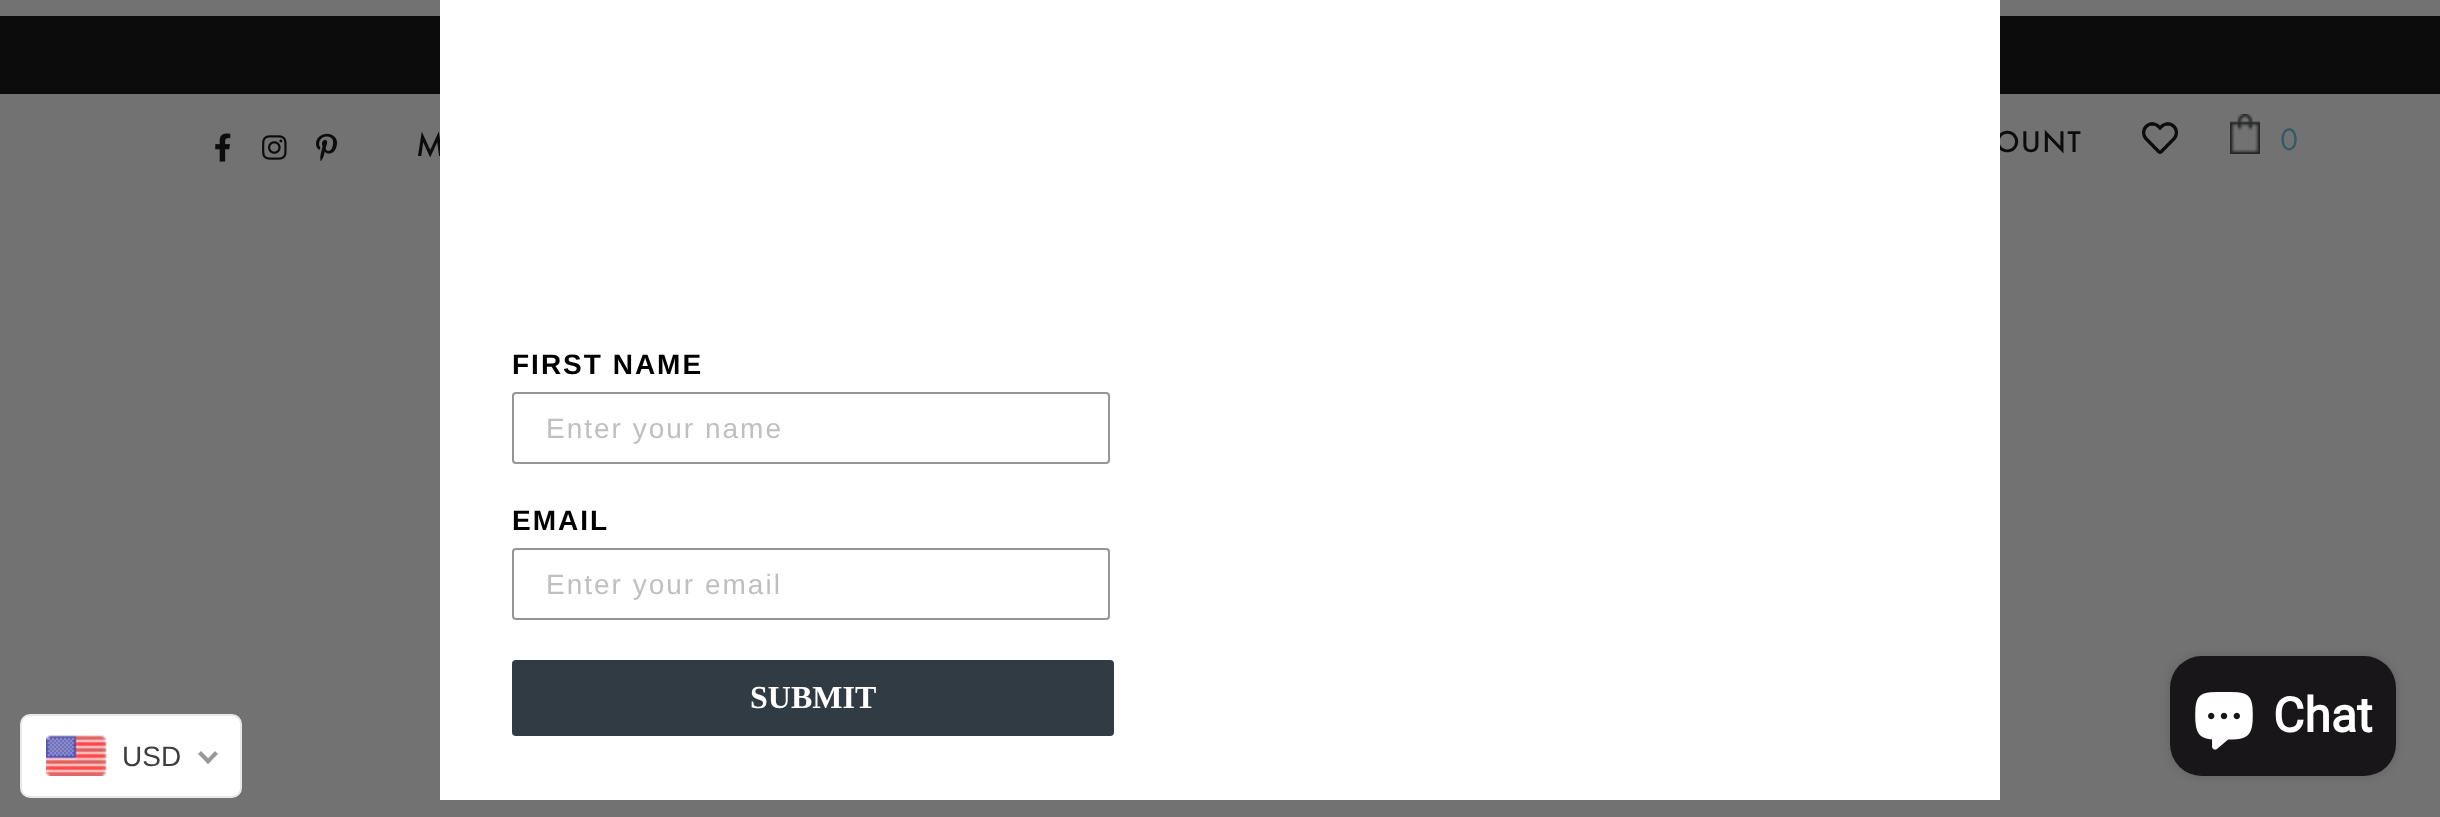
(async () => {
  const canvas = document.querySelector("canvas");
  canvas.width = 2440;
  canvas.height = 817;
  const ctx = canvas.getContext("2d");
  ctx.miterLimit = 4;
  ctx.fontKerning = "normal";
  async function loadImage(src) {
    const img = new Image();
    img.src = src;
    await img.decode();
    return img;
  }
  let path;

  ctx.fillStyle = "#727272";
  ctx.fillRect(0, 0, 2440, 817);
  ctx.fillStyle = "#0c0c0c";
  ctx.fillRect(0, 16, 2440, 78);
  ctx.drawImage(await loadImage("img/1.png"), 215, 133, 16, 29);
  ctx.drawImage(await loadImage("img/2.png"), 262, 135, 25, 25);
  ctx.drawImage(await loadImage("img/3.png"), 316, 133, 21, 29);
  ctx.drawImage(await loadImage("img/4.png"), 2142, 122, 36, 32);
  ctx.drawImage(await loadImage("img/5.png"), 2230, 114, 30, 40);
  ctx.fillStyle = "rgba(0, 0, 0, 0.15)";
  ctx.filter = "blur(5px)";
  ctx.beginPath();
  ctx.roundRect(2170, 656, 226, 120, 32);
  ctx.fill();
  ctx.filter = "none";
  ctx.fillStyle = "#191619";
  ctx.beginPath();
  ctx.roundRect(2170, 656, 226, 120, 32);
  ctx.fill();
  ctx.drawImage(await loadImage("img/6.png"), 2195, 692, 58, 58);
  ctx.fillStyle = "#ffffff";
  ctx.beginPath();
  ctx.roundRect(21, 715, 220, 82, 9);
  ctx.fill();
  ctx.strokeStyle = "#e8e8e8";
  ctx.lineWidth = 2;
  ctx.stroke();
  ctx.drawImage(await loadImage("img/7.png"), 46, 735, 61, 41);
  ctx.fillStyle = "#999999";
  path = new Path2D("M215 751L218 754L208 764L205.5 761Z");
  ctx.fill(path);
  path = new Path2D("M201 751L211 761L208 764L198 754Z");
  ctx.fill(path);
  ctx.font = "bold 32px Futura PT";
  ctx.fillStyle = "#0c0c0c";
  ctx.fillText("M", 416, 156);
  ctx.letterSpacing = "2px";
  ctx.font = "bold 30px Futura PT";
  ctx.fillText("OUNT", 1995, 152);
  ctx.letterSpacing = "0px";
  ctx.font = "32px Futura PT";
  ctx.fillStyle = "#325967";
  ctx.fillText("0", 2280, 150);
  ctx.fillStyle = "#ffffff";
  ctx.fillRect(440, 0, 1560, 800);
  ctx.letterSpacing = "2px";
  ctx.font = "bold 28px Liberation Sans";
  ctx.fillStyle = "#000000";
  ctx.fillText("FIRST NAME", 512, 374);
  ctx.beginPath();
  ctx.roundRect(513, 393, 596, 70, 3);
  ctx.strokeStyle = "#949596";
  ctx.stroke();
  ctx.font = "28px Liberation Sans";
  ctx.fillStyle = "#bfbfc0";
  ctx.fillText("Enter your name", 546, 438);
  ctx.font = "bold 28px Liberation Sans";
  ctx.fillStyle = "#000000";
  ctx.fillText("EMAIL", 512, 530);
  ctx.beginPath();
  ctx.roundRect(513, 549, 596, 70, 3);
  ctx.stroke();
  ctx.font = "28px Liberation Sans";
  ctx.fillStyle = "#bfbfc0";
  ctx.fillText("Enter your email", 546, 594);
  ctx.fillStyle = "#303b43";
  ctx.beginPath();
  ctx.roundRect(512, 660, 602, 76, 4);
  ctx.fill();
  ctx.letterSpacing = "0px";
  ctx.font = "bold 32px Liberation Serif";
  ctx.fillStyle = "#ffffff";
  ctx.fillText("SUBMIT", 750, 708);
  ctx.font = "bold 48px Roboto";
  ctx.fillText("Chat", 2273, 732);
  ctx.font = "28px Liberation Sans";
  ctx.fillStyle = "#403f3f";
  ctx.fillText("USD", 122, 766);
})();
